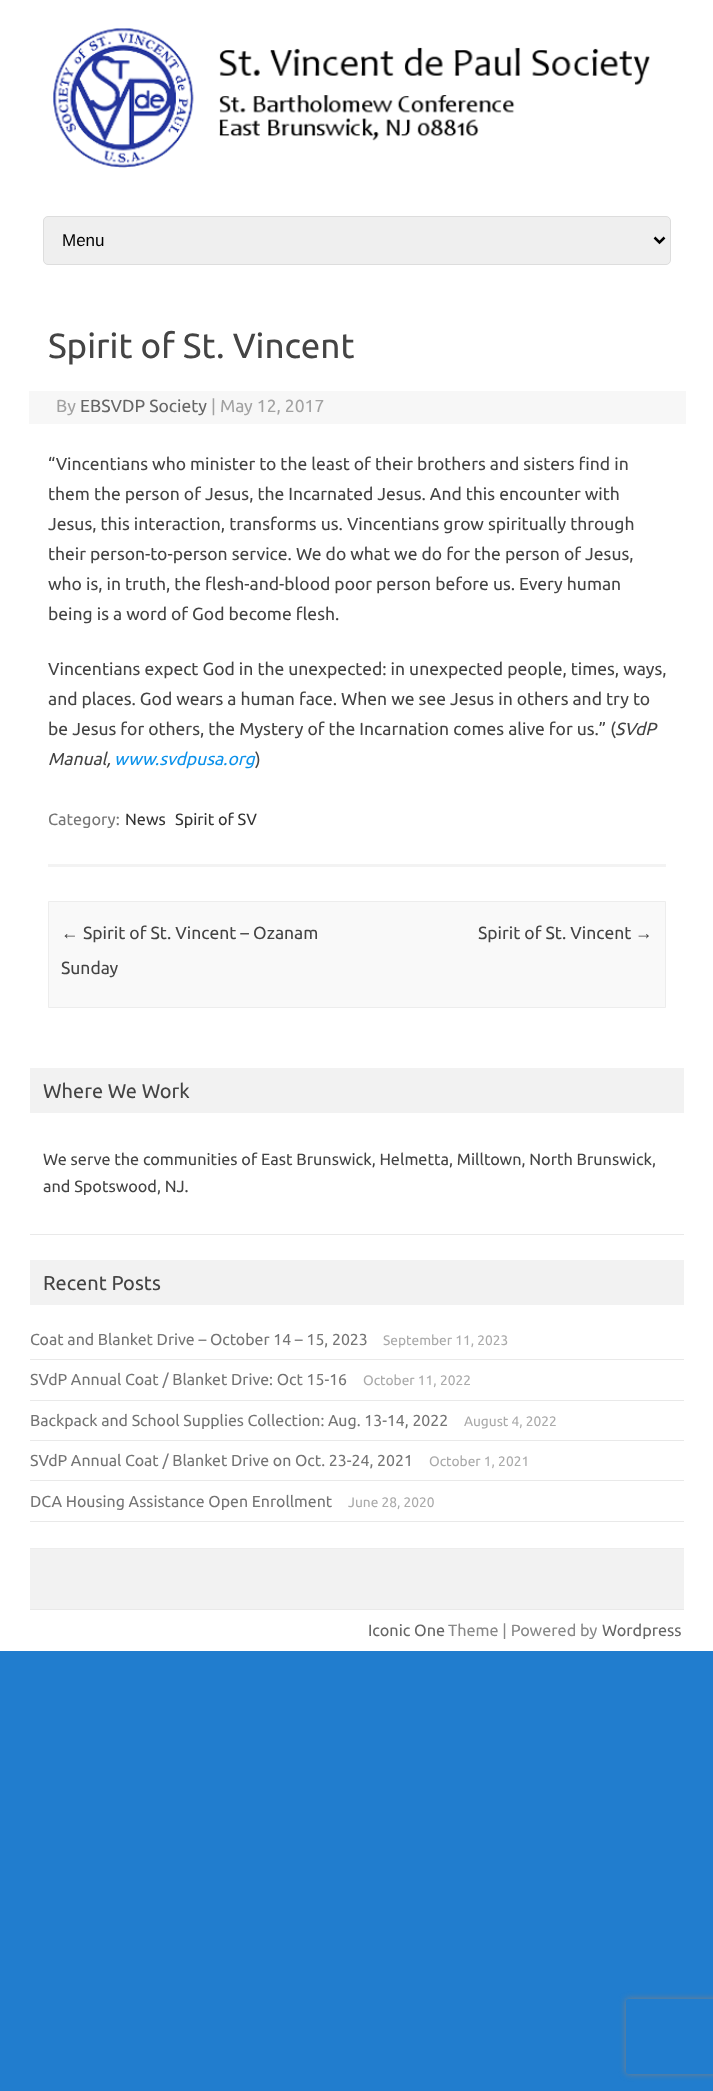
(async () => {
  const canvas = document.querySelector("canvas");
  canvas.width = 713;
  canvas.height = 2091;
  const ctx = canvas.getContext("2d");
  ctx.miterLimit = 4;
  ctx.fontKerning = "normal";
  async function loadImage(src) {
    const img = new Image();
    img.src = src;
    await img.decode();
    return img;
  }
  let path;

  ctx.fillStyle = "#217dce";
  ctx.fillRect(0, 0, 713, 2091);
  ctx.fillStyle = "#ffffff";
  ctx.fillRect(0, 0, 713, 1651);
  ctx.drawImage(await loadImage("img/1.png"), 53, 28, 597, 140);
  ctx.fillStyle = "#efefef";
  ctx.beginPath();
  ctx.roundRect(43.5, 216.5, 627, 48, 4.5);
  ctx.fill();
  ctx.strokeStyle = "#dddddd";
  ctx.stroke();
  path = new Path2D("M654.5 237.5L659.5 242.5L664.5 237.5");
  ctx.strokeStyle = "#000000";
  ctx.lineWidth = 2.5;
  ctx.stroke(path);
  ctx.fillStyle = "#f3f3f3";
  ctx.fillRect(48, 864, 618, 3);
  ctx.fillStyle = "#f7f7f7";
  ctx.fillRect(29, 391, 657, 33);
  ctx.fillStyle = "#f9f9f9";
  ctx.beginPath();
  ctx.rect(48.5, 901.5, 617, 106);
  ctx.fill();
  ctx.strokeStyle = "#ededed";
  ctx.lineWidth = 1;
  ctx.stroke();
  for (const [x, y, w, h, color] of [
    [30, 1068, 654, 45, "#f2f2f2"],
    [30, 1234, 654, 1, "#e9e9e9"],
    [30, 1260, 654, 45, "#f2f2f2"],
    [30, 1359, 654, 1, "#e9e9e9"],
    [30, 1400, 654, 1, "#e9e9e9"],
    [30, 1440, 654, 1, "#e9e9e9"],
    [30, 1480, 654, 1, "#e9e9e9"],
    [30, 1521, 654, 1, "#e9e9e9"],
    [30, 1549, 654, 60, "#f2f2f2"],
    [30, 1548, 654, 1, "#ededed"],
    [30, 1609, 654, 1, "#e9e9e9"],
  ]) {
    ctx.fillStyle = color;
    ctx.fillRect(x, y, w, h);
  }
  ctx.save();
  path = new Path2D("M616 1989H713V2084H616ZM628.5 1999H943.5C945 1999 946 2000 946 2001.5V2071.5C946 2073 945 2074 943.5 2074H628.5C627 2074 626 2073 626 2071.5V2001.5C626 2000 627 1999 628.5 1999Z");
  ctx.clip(path, "evenodd");
  ctx.fillStyle = "#808080";
  ctx.filter = "blur(3px)";
  ctx.beginPath();
  ctx.roundRect(626, 1999, 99, 75, 2.5);
  ctx.fill();
  ctx.filter = "none";
  ctx.restore();
  ctx.font = "17px Liberation Sans";
  ctx.fillStyle = "#000000";
  ctx.fillText("Menu", 62, 246);
  ctx.font = "35px Ubuntu";
  ctx.fillStyle = "#444444";
  ctx.fillText("Spirit of St. Vincent", 48, 358);
  ctx.font = "17.5px Ubuntu";
  ctx.fillStyle = "#a2a2a2";
  ctx.fillText("By", 56, 412);
  ctx.fillStyle = "#666666";
  ctx.fillText("EBSVDP Society", 80, 412);
  ctx.fillStyle = "#a2a2a2";
  ctx.fillText("| May 12, 2017", 211, 412);
  ctx.fillStyle = "#444444";
  for (const [text, x, y] of [
    ["“Vincentians who minister to the least of their brothers and sisters find in", 48, 470],
    ["them the person of Jesus, the Incarnated Jesus. And this encounter with", 48, 500],
    ["Jesus, this interaction, transforms us. Vincentians grow spiritually through", 48, 530],
    ["their person-to-person service. We do what we do for the person of Jesus,", 48, 560],
    ["who is, in truth, the flesh-and-blood poor person before us. Every human", 48, 590],
    ["being is a word of God become flesh.", 48, 620],
    ["Vincentians expect God in the unexpected: in unexpected people, times, ways,", 48, 675],
    ["and places. God wears a human face. When we see Jesus in others and try to", 48, 705],
    ["be Jesus for others, the Mystery of the Incarnation comes alive for us.” (", 48, 735],
  ]) {
    ctx.fillText(text, x, y);
  }
  ctx.font = "italic 17.5px Ubuntu";
  ctx.fillText("SVdP", 615, 735);
  ctx.fillText("Manual,", 48, 765);
  ctx.fillStyle = "#0b91ea";
  ctx.fillText("www.svdpusa.org", 114, 765);
  ctx.font = "17.5px Ubuntu";
  ctx.fillStyle = "#444444";
  ctx.fillText(")", 255, 765);
  ctx.font = "16.25px Ubuntu";
  ctx.fillStyle = "#757575";
  ctx.fillText("Category:", 48, 825);
  ctx.fillStyle = "#333333";
  ctx.fillText("News", 125, 825);
  ctx.fillText("Spirit of SV", 175, 825);
  ctx.font = "17.5px Liberation Sans";
  ctx.fillStyle = "#444444";
  ctx.fillText("←", 61, 939);
  ctx.font = "17.5px Ubuntu";
  for (const [text, x, y] of [
    ["Spirit of St. Vincent – Ozanam", 83, 939],
    ["Sunday", 61, 974],
    ["Spirit of St. Vincent", 478, 939],
  ]) {
    ctx.fillText(text, x, y);
  }
  ctx.font = "17.5px Liberation Sans";
  ctx.fillText("→", 635, 939);
  ctx.font = "20px Ubuntu";
  ctx.fillText("Where We Work", 43, 1098);
  ctx.font = "16.25px Ubuntu";
  ctx.fillText("We serve the communities of East Brunswick, Helmetta, Milltown, North Brunswick,", 43, 1165);
  ctx.fillText("and Spotswood, NJ.", 43, 1192);
  ctx.font = "20px Ubuntu";
  ctx.fillText("Recent Posts", 43, 1290);
  ctx.font = "15.9px Ubuntu";
  ctx.fillStyle = "#757575";
  ctx.fillText("Coat and Blanket Drive – October 14 – 15, 2023", 30, 1345);
  ctx.font = "13.75px Ubuntu";
  ctx.fillStyle = "#aaaaaa";
  ctx.fillText("September 11, 2023", 383, 1345);
  ctx.font = "15.9px Ubuntu";
  ctx.fillStyle = "#757575";
  ctx.fillText("SVdP Annual Coat / Blanket Drive: Oct 15-16", 30, 1385);
  ctx.font = "13.75px Ubuntu";
  ctx.fillStyle = "#aaaaaa";
  ctx.fillText("October 11, 2022", 363, 1385);
  ctx.font = "15.9px Ubuntu";
  ctx.fillStyle = "#757575";
  ctx.fillText("Backpack and School Supplies Collection: Aug. 13-14, 2022", 30, 1426);
  ctx.font = "13.75px Ubuntu";
  ctx.fillStyle = "#aaaaaa";
  ctx.fillText("August 4, 2022", 464, 1426);
  ctx.font = "15.9px Ubuntu";
  ctx.fillStyle = "#757575";
  ctx.fillText("SVdP Annual Coat / Blanket Drive on Oct. 23-24, 2021", 30, 1466);
  ctx.font = "13.75px Ubuntu";
  ctx.fillStyle = "#aaaaaa";
  ctx.fillText("October 1, 2021", 429, 1466);
  ctx.font = "15.9px Ubuntu";
  ctx.fillStyle = "#757575";
  ctx.fillText("DCA Housing Assistance Open Enrollment", 30, 1507);
  ctx.font = "13.75px Ubuntu";
  ctx.fillStyle = "#aaaaaa";
  ctx.fillText("June 28, 2020", 348, 1507);
  ctx.font = "16.25px Ubuntu";
  ctx.fillStyle = "#666666";
  ctx.fillText("Iconic One", 368, 1636);
  ctx.fillStyle = "#888888";
  ctx.fillText("Theme | Powered by", 448, 1636);
  ctx.fillStyle = "#666666";
  ctx.fillText("Wordpress", 602, 1636);
})();
